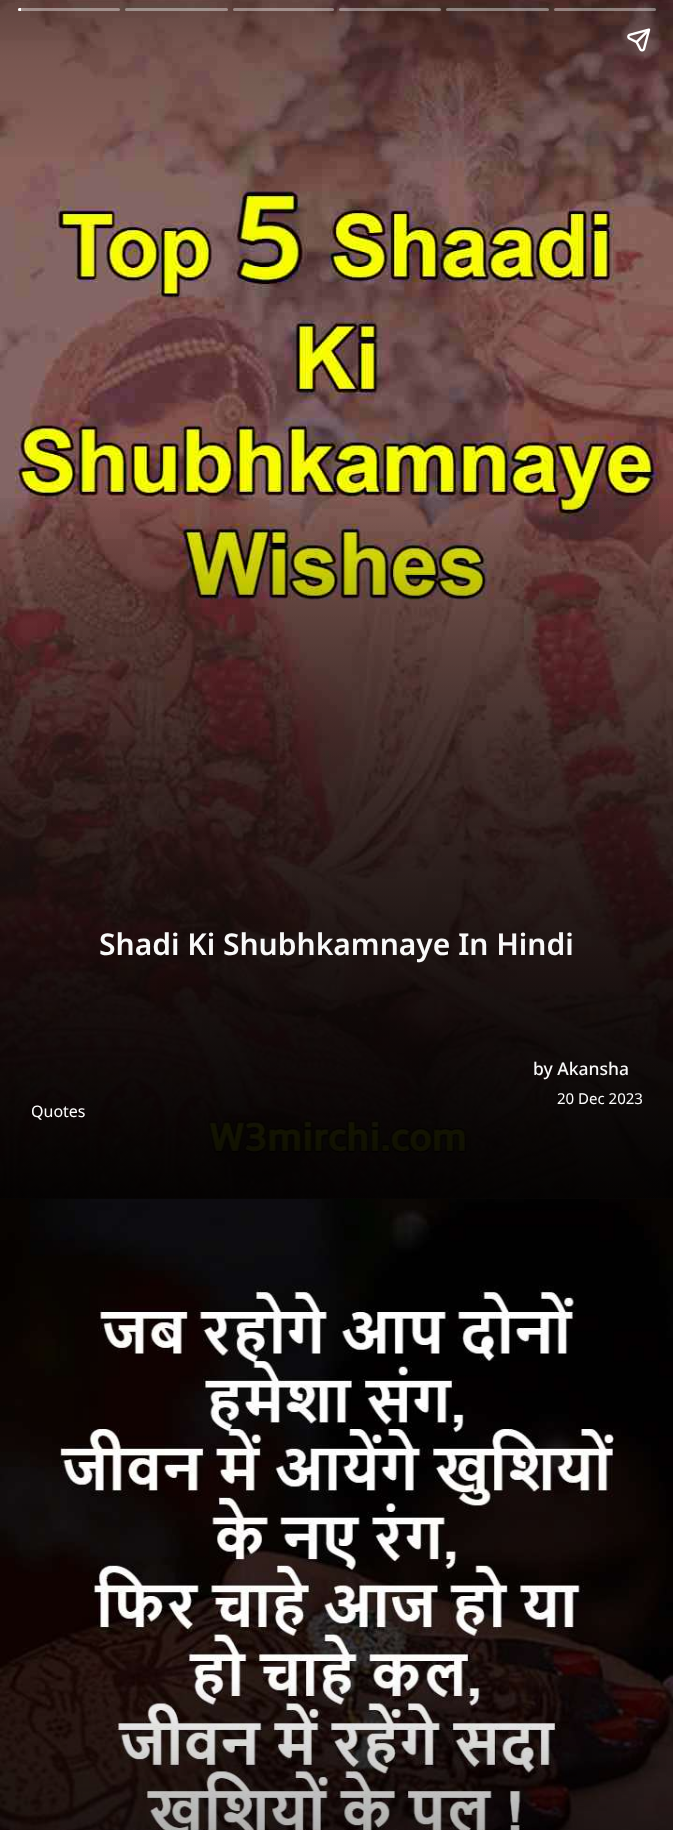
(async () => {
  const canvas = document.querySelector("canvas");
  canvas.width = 673;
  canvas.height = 1830;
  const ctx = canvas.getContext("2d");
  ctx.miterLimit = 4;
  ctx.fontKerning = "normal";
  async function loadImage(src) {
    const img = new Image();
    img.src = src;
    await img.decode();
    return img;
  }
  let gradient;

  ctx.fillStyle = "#ffffff";
  ctx.fillRect(0, 0, 673, 1830);
  ctx.drawImage(await loadImage("img/2.png"), 0, 0, 673, 1199);
  gradient = ctx.createLinearGradient(337, 0, 337, 175);
  gradient.addColorStop(0, "rgba(0, 0, 0, 0.27)");
  gradient.addColorStop(0.33, "rgba(0, 0, 0, 0.13)");
  gradient.addColorStop(0.67, "rgba(0, 0, 0, 0.07)");
  gradient.addColorStop(1, "rgba(0, 0, 0, 0)");
  ctx.fillStyle = gradient;
  ctx.fillRect(0, 0, 673, 157);
  ctx.fillStyle = "rgba(255, 255, 255, 0.4)";
  ctx.beginPath();
  ctx.roundRect(18, 8, 102, 3, 1.5);
  ctx.fill();
  ctx.fillStyle = "#ffffff";
  ctx.beginPath();
  ctx.roundRect(18, 8, 3, 3, [1.5, 0, 0, 1.5]);
  ctx.fill();
  ctx.fillStyle = "rgba(255, 255, 255, 0.4)";
  ctx.beginPath();
  ctx.roundRect(125, 8, 103, 3, 1.5);
  ctx.fill();
  ctx.beginPath();
  ctx.roundRect(233, 8, 101, 3, 1.5);
  ctx.fill();
  ctx.beginPath();
  ctx.roundRect(339, 8, 102, 3, 1.5);
  ctx.fill();
  ctx.beginPath();
  ctx.roundRect(446, 8, 103, 3, 1.5);
  ctx.fill();
  ctx.beginPath();
  ctx.roundRect(554, 8, 102, 3, 1.5);
  ctx.fill();
  ctx.drawImage(await loadImage("img/1.png"), 627, 28, 24, 24);
  gradient = ctx.createLinearGradient(337, -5, 337, 1204);
  gradient.addColorStop(0.4, "rgba(0, 0, 0, 0)");
  gradient.addColorStop(1, "rgba(0, 0, 0, 0.8)");
  ctx.fillStyle = gradient;
  ctx.fillRect(0, 498, 673, 701);
  ctx.fillRect(0, 498, 673, 701);
  ctx.drawImage(await loadImage("img/3.png"), 0, 1199, 673, 631);
  ctx.font = "600 30px Noto Sans";
  ctx.fillStyle = "#f9f9f9";
  ctx.fillText("Shadi Ki Shubhkamnaye In Hindi", 99, 955);
  ctx.font = "500 17.5px Noto Sans";
  ctx.fillText("by Akansha", 533, 1075);
  ctx.font = "15px Noto Sans";
  ctx.fillStyle = "#ffffff";
  ctx.fillText("20 Dec 2023", 557, 1104);
  ctx.font = "16px Noto Sans";
  ctx.fillText("Quotes", 31, 1117);
})();
